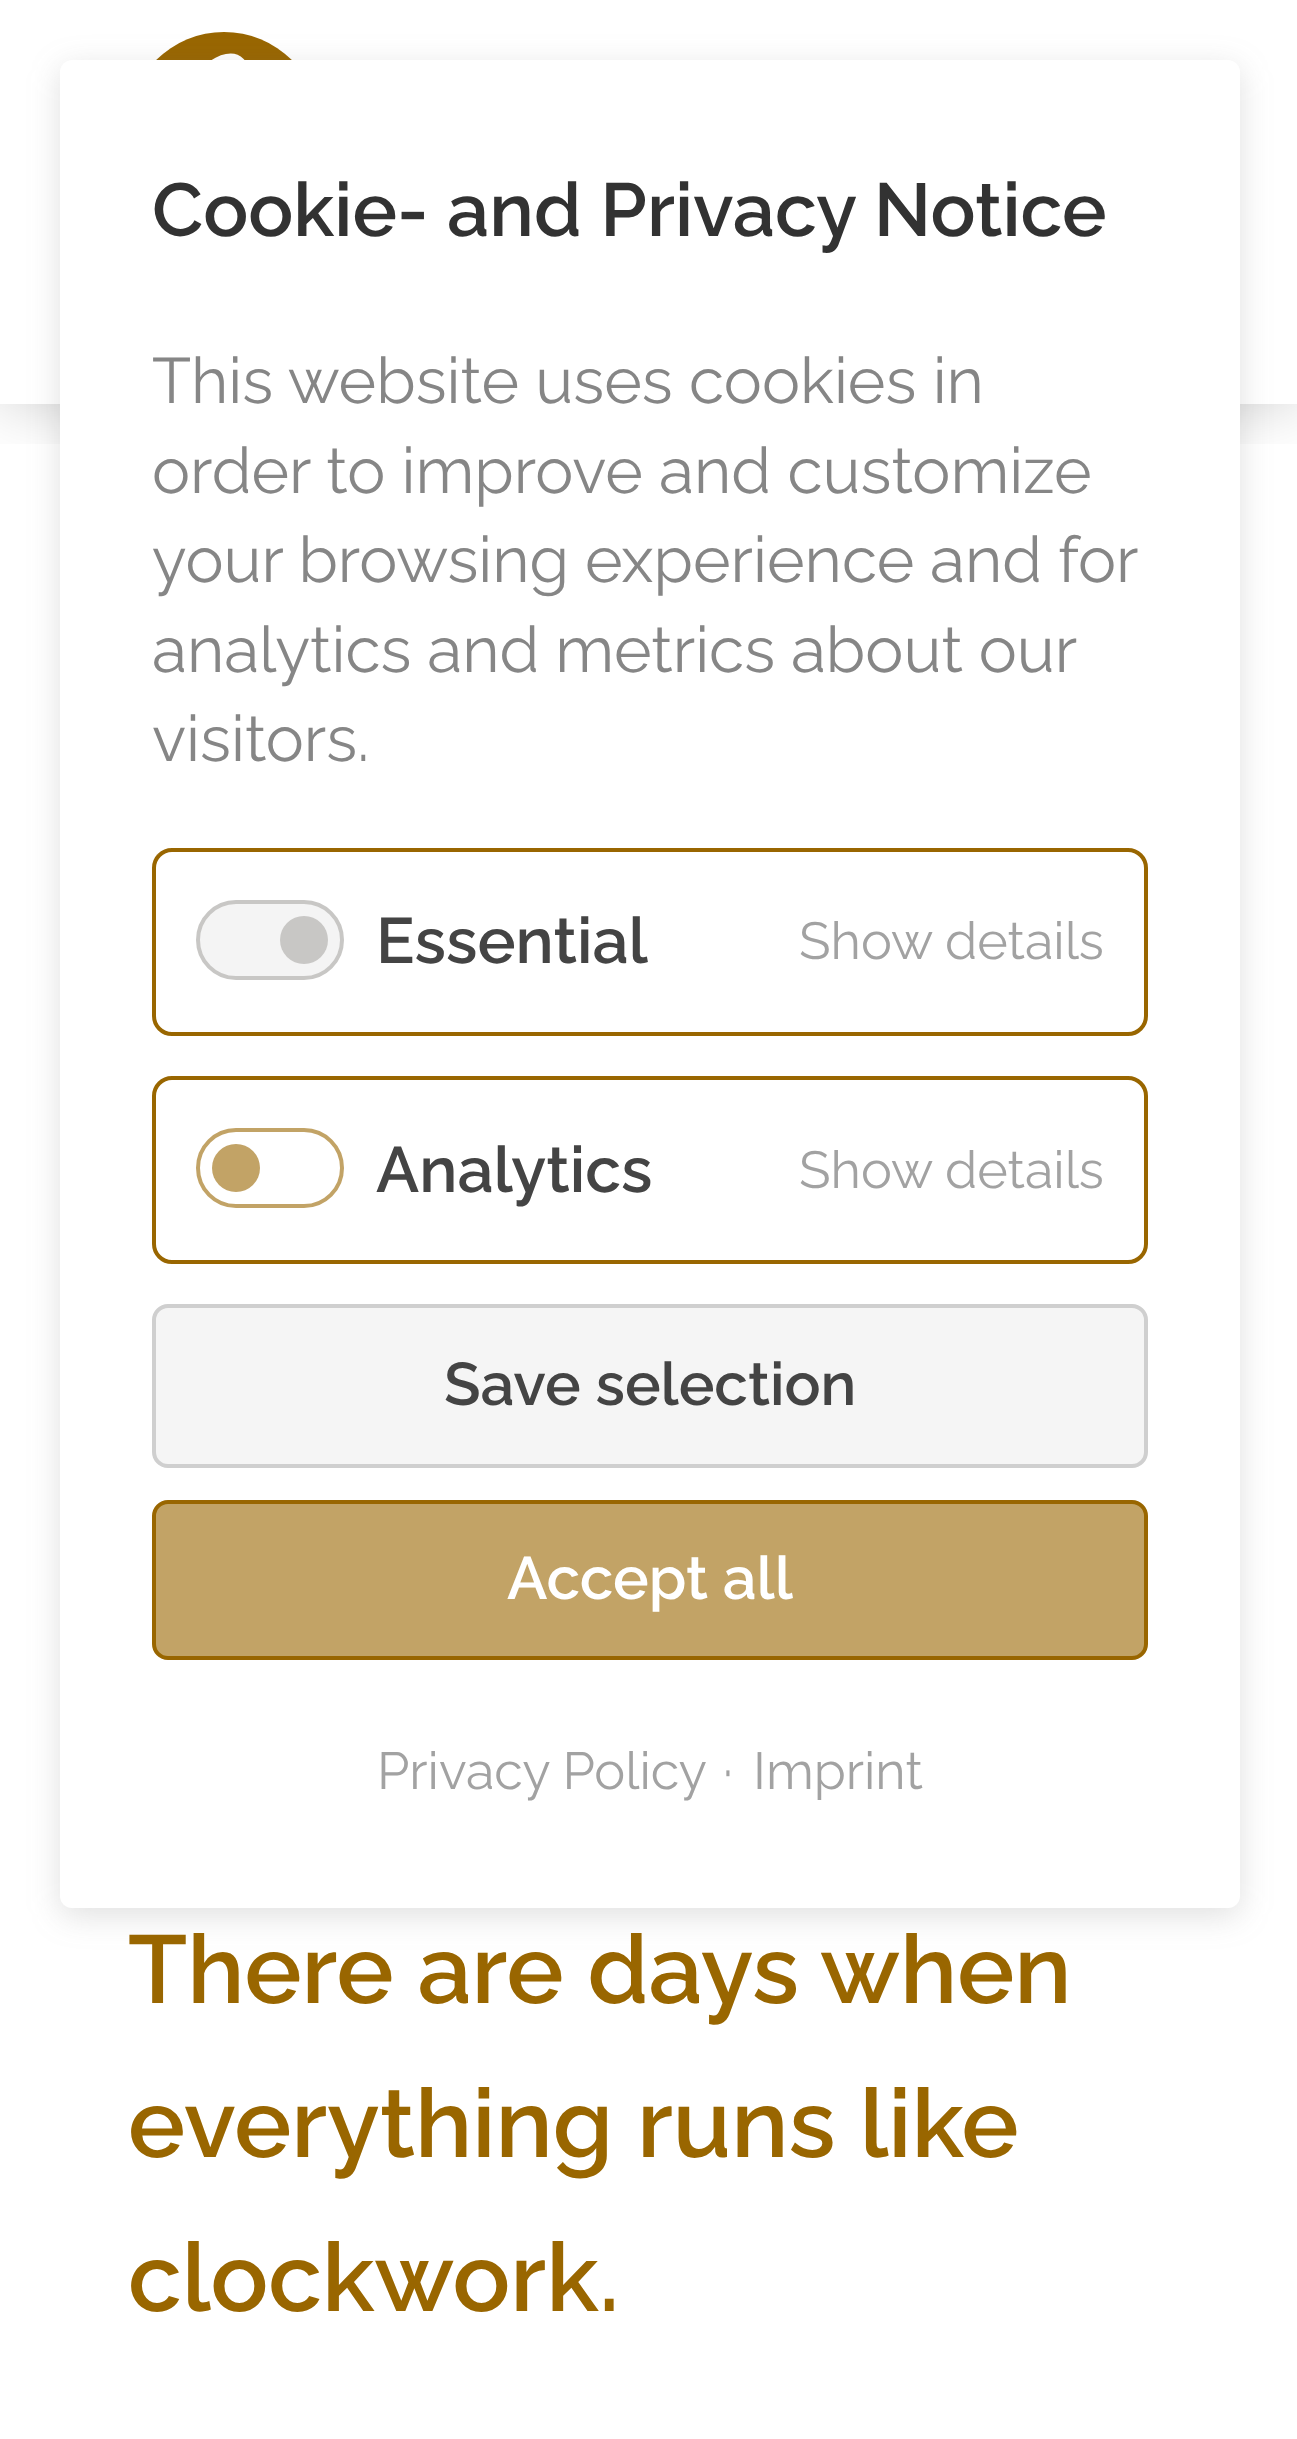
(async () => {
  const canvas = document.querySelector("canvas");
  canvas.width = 1297;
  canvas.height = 2439;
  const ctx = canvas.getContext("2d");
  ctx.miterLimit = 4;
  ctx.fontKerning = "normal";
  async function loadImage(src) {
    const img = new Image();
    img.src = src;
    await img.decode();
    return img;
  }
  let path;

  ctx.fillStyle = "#ffffff";
  ctx.fillRect(0, 0, 1297, 2439);
  ctx.save();
  ctx.beginPath();
  ctx.rect(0, 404, 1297, 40);
  ctx.clip();
  ctx.fillStyle = "rgba(0, 0, 0, 0.2)";
  ctx.filter = "blur(32px)";
  ctx.beginPath();
  ctx.rect(0, 0, 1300, 404);
  ctx.fill();
  ctx.filter = "none";
  ctx.restore();
  ctx.drawImage(await loadImage("img/1.png"), 156, 32, 136, 28);
  ctx.fillStyle = "rgba(99, 99, 99, 0.2)";
  ctx.filter = "blur(16px)";
  ctx.beginPath();
  ctx.roundRect(60, 68, 1180, 1848, 12);
  ctx.fill();
  ctx.filter = "none";
  ctx.fillStyle = "#ffffff";
  ctx.beginPath();
  ctx.roundRect(60, 60, 1180, 1848, 12);
  ctx.fill();
  ctx.beginPath();
  ctx.roundRect(154, 850, 992, 184, 18);
  ctx.strokeStyle = "#996600";
  ctx.lineWidth = 4;
  ctx.stroke();
  path = new Path2D("M157 854L157.5 855L159 853");
  ctx.strokeStyle = "#b69249";
  ctx.lineWidth = 0.6;
  ctx.stroke(path);
  ctx.fillStyle = "#f4f4f4";
  ctx.beginPath();
  ctx.roundRect(198, 902, 144, 76, 38);
  ctx.fill();
  ctx.strokeStyle = "#c8c7c5";
  ctx.lineWidth = 4;
  ctx.stroke();
  ctx.fillStyle = "#c8c7c5";
  ctx.beginPath();
  ctx.arc(304, 940, 24, 0, Math.PI * 2);
  ctx.fill();
  ctx.beginPath();
  ctx.roundRect(154, 1078, 992, 184, 18);
  ctx.strokeStyle = "#996600";
  ctx.stroke();
  ctx.beginPath();
  ctx.roundRect(198, 1130, 144, 76, 38);
  ctx.strokeStyle = "#c2a366";
  ctx.stroke();
  ctx.fillStyle = "#c2a366";
  ctx.beginPath();
  ctx.arc(236, 1168, 24, 0, Math.PI * 2);
  ctx.fill();
  ctx.fillStyle = "#f5f5f5";
  ctx.beginPath();
  ctx.roundRect(154, 1306, 992, 160, 14);
  ctx.fill();
  ctx.strokeStyle = "#cfcfcf";
  ctx.stroke();
  ctx.fillStyle = "#c2a366";
  ctx.beginPath();
  ctx.roundRect(154, 1502, 992, 156, 14);
  ctx.fill();
  ctx.strokeStyle = "#996600";
  ctx.stroke();
  ctx.font = "600 74.9px Raleway";
  ctx.fillStyle = "#323232";
  ctx.fillText("Cookie- and Privacy Notice", 152, 236);
  ctx.font = "64px Raleway";
  ctx.fillStyle = "#868686";
  ctx.fillText("This website uses cookies in", 152, 403);
  ctx.fillText("order to improve and customize", 152, 493);
  ctx.wordSpacing = "-0.5px";
  ctx.fillText("your browsing experience and for", 152, 582);
  ctx.fillText("analytics and metrics about our", 152, 672);
  ctx.wordSpacing = "0px";
  ctx.fillText("visitors.", 152, 761);
  ctx.font = "600 64px Raleway";
  ctx.fillStyle = "#444444";
  ctx.fillText("Essential", 376, 963);
  ctx.font = "52px Raleway";
  ctx.fillStyle = "#a2a2a2";
  ctx.fillText("Show details", 799, 959);
  ctx.font = "600 64px Raleway";
  ctx.fillStyle = "#444444";
  ctx.fillText("Analytics", 376, 1192);
  ctx.font = "52px Raleway";
  ctx.fillStyle = "#a2a2a2";
  ctx.fillText("Show details", 799, 1188);
  ctx.font = "600 60px Raleway";
  ctx.fillStyle = "#444444";
  ctx.fillText("Save selection", 444, 1405);
  ctx.fillStyle = "#ffffff";
  ctx.fillText("Accept all", 507, 1599);
  ctx.font = "52px Raleway";
  ctx.fillStyle = "#a2a2a2";
  for (const [text, x, y] of [
    ["Privacy Policy", 377, 1789],
    ["·", 723, 1789],
    ["Imprint", 753, 1789],
  ]) {
    ctx.fillText(text, x, y);
  }
  ctx.font = "600 96px Raleway";
  ctx.fillStyle = "#996600";
  for (const [text, x, y] of [
    ["There are days when", 128, 2003],
    ["everything runs like", 128, 2157],
    ["clockwork.", 128, 2311],
  ]) {
    ctx.fillText(text, x, y);
  }
})();
